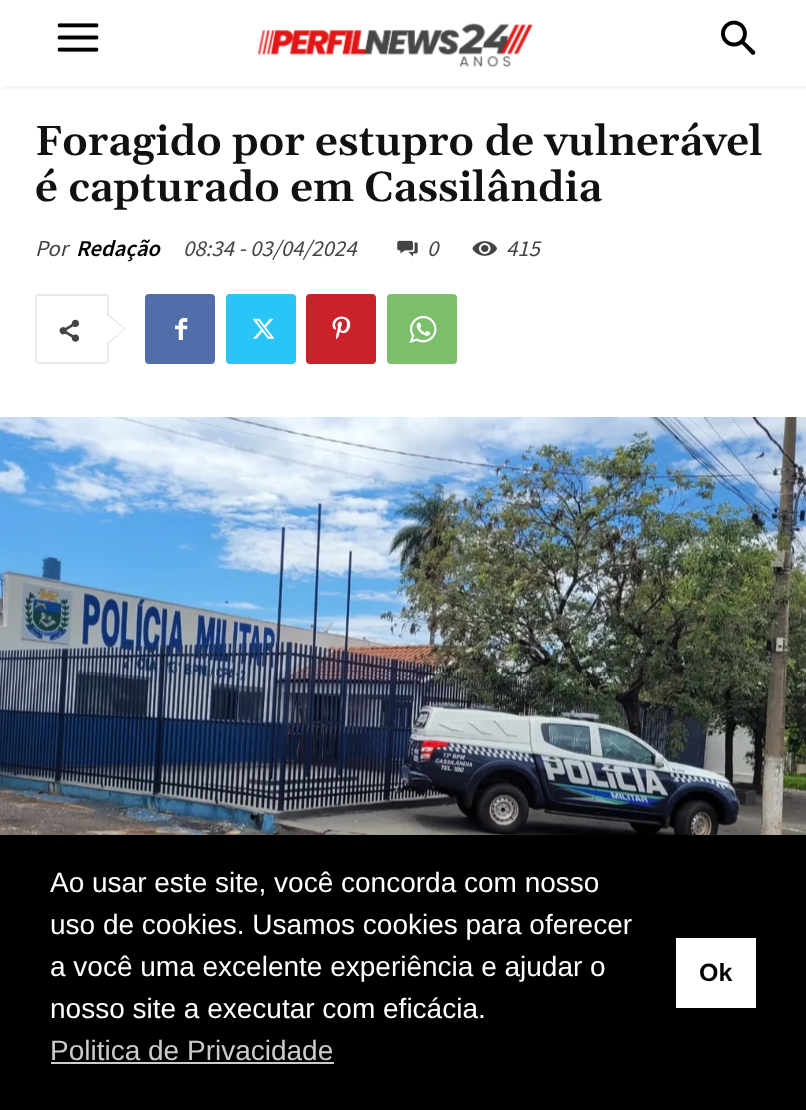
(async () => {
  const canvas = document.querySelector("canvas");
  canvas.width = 806;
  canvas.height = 1110;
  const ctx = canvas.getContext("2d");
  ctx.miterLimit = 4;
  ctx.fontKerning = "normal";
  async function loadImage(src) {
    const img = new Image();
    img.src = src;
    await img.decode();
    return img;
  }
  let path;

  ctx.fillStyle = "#ffffff";
  ctx.fillRect(0, 0, 806, 1110);
  ctx.drawImage(await loadImage("img/1.png"), 57, 23, 42, 29);
  ctx.drawImage(await loadImage("img/2.png"), 257, 23, 276, 45);
  ctx.drawImage(await loadImage("img/3.png"), 721, 20, 35, 35);
  ctx.save();
  ctx.beginPath();
  ctx.rect(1, 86, 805, 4);
  ctx.clip();
  ctx.fillStyle = "rgba(0, 0, 0, 0.06)";
  ctx.filter = "blur(3.5px)";
  ctx.beginPath();
  ctx.rect(2, 4, 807, 85);
  ctx.fill();
  ctx.filter = "none";
  ctx.restore();
  ctx.drawImage(await loadImage("img/4.png"), 397, 240, 21, 17);
  ctx.drawImage(await loadImage("img/5.png"), 472, 241, 25, 15);
  ctx.beginPath();
  ctx.roundRect(36, 295, 72, 68, 3);
  ctx.strokeStyle = "#e9e9e9";
  ctx.lineWidth = 2;
  ctx.stroke();
  ctx.fillStyle = "#e9e9e9";
  path = new Path2D("M107 345V313L126 329Z");
  ctx.fill(path);
  ctx.drawImage(await loadImage("img/6.png"), 59, 319, 21, 23);
  ctx.fillStyle = "#ffffff";
  path = new Path2D("M107 343V315L124 329Z");
  ctx.fill(path);
  ctx.fillStyle = "#516eab";
  ctx.beginPath();
  ctx.roundRect(145, 294, 70, 70, 4);
  ctx.fill();
  ctx.drawImage(await loadImage("img/7.png"), 175, 318, 13, 22);
  ctx.fillStyle = "#29c5f6";
  ctx.beginPath();
  ctx.roundRect(226, 294, 70, 70, 4);
  ctx.fill();
  ctx.drawImage(await loadImage("img/8.png"), 252, 318, 23, 21);
  ctx.fillStyle = "#ca212a";
  ctx.beginPath();
  ctx.roundRect(306, 294, 70, 70, 4);
  ctx.fill();
  ctx.drawImage(await loadImage("img/9.png"), 332, 316, 19, 24);
  ctx.fillStyle = "#7bbf6a";
  ctx.beginPath();
  ctx.roundRect(387, 294, 70, 70, 4);
  ctx.fill();
  ctx.drawImage(await loadImage("img/10.png"), 409, 315, 28, 28);
  ctx.drawImage(await loadImage("img/11.png"), 0, 417, 806, 418);
  for (const [x, y, w, h, color] of [
    [0, 835, 806, 275, "#000000"],
    [51, 1062, 283, 2, "#cccccc"],
    [676, 938, 80, 70, "#ffffff"],
  ]) {
    ctx.fillStyle = color;
    ctx.fillRect(x, y, w, h);
  }
  ctx.font = "600 42px Gelasio";
  ctx.fillStyle = "#111111";
  ctx.fillText("Foragido por estupro de vulnerável", 35, 155);
  ctx.fillText("é capturado em Cassilândia", 35, 201);
  ctx.font = "italic 22.75px Source Sans Pro";
  ctx.fillStyle = "#444444";
  ctx.fillText("Por", 35, 256);
  ctx.font = "italic 600 22.75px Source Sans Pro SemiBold";
  ctx.fillStyle = "#000000";
  ctx.fillText("Redação", 76, 256);
  ctx.font = "italic 22.75px Source Sans Pro";
  ctx.fillStyle = "#444444";
  for (const [text, x, y] of [
    ["08:34 - 03/04/2024", 183, 256],
    ["0", 427, 256],
    ["415", 506, 256],
  ]) {
    ctx.fillText(text, x, y);
  }
  ctx.font = "28px Liberation Sans";
  ctx.fillStyle = "#ffffff";
  for (const [text, x, y] of [
    ["Ao usar este site, você concorda com nosso", 50, 892],
    ["uso de cookies. Usamos cookies para oferecer", 50, 934],
    ["a você uma excelente experiência e ajudar o", 50, 976],
    ["nosso site a executar com eficácia.", 50, 1018],
  ]) {
    ctx.fillText(text, x, y);
  }
  ctx.fillStyle = "#cccccc";
  ctx.fillText("Politica de Privacidade", 50, 1060);
  ctx.font = "bold 25px Liberation Sans";
  ctx.fillStyle = "#000000";
  ctx.fillText("Ok", 699, 981);
})();
